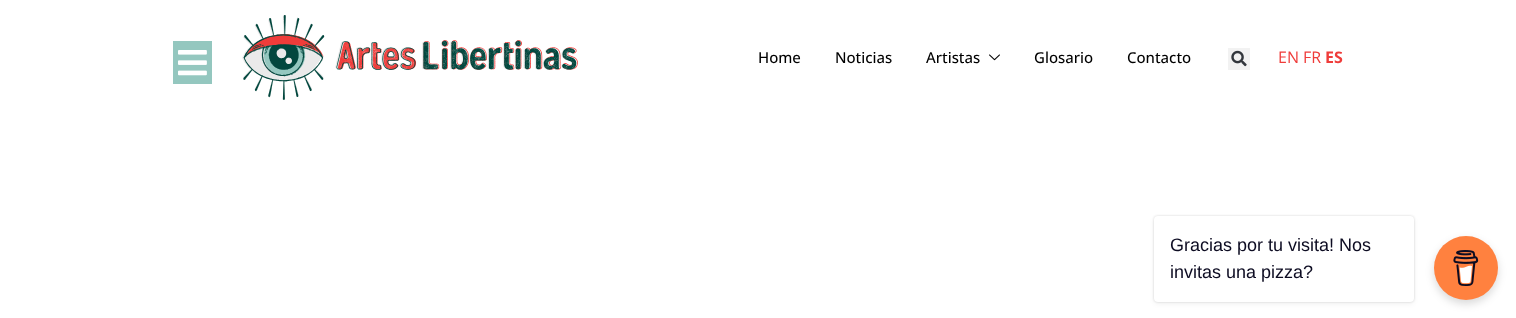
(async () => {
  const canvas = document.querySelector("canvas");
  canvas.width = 1516;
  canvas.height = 318;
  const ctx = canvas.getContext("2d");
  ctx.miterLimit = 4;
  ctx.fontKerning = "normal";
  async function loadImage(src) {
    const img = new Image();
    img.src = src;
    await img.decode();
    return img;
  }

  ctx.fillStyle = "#ffffff";
  ctx.fillRect(0, 0, 1516, 318);
  ctx.fillStyle = "#94c7bf";
  ctx.fillRect(173, 41, 39, 43);
  ctx.drawImage(await loadImage("img/1.png"), 178, 50, 29, 26);
  ctx.drawImage(await loadImage("img/2.png"), 242, 15, 336, 85);
  ctx.drawImage(await loadImage("img/3.png"), 989, 54, 11, 7);
  ctx.fillStyle = "#f2f2f2";
  ctx.fillRect(1228, 48, 22, 22);
  ctx.drawImage(await loadImage("img/4.png"), 1231, 50, 16, 17);
  ctx.fillStyle = "rgba(0, 0, 0, 0.15)";
  ctx.filter = "blur(1px)";
  ctx.beginPath();
  ctx.roundRect(1154, 216, 260, 86, 4);
  ctx.fill();
  ctx.filter = "none";
  ctx.fillStyle = "rgba(0, 0, 0, 0.05)";
  ctx.filter = "blur(2.5px)";
  ctx.beginPath();
  ctx.roundRect(1154, 218, 260, 86, 4);
  ctx.fill();
  ctx.filter = "none";
  ctx.fillStyle = "#ffffff";
  ctx.beginPath();
  ctx.roundRect(1154, 216, 260, 86, 4);
  ctx.fill();
  ctx.fillStyle = "rgba(0, 0, 0, 0.15)";
  ctx.filter = "blur(4px)";
  ctx.beginPath();
  ctx.roundRect(1434, 240, 64, 64, 32);
  ctx.fill();
  ctx.filter = "none";
  ctx.fillStyle = "#ff813f";
  ctx.beginPath();
  ctx.arc(1466, 268, 32, 0, Math.PI * 2);
  ctx.fill();
  ctx.drawImage(await loadImage("img/5.png"), 1453, 250, 26, 36);
  ctx.font = "500 15px Open Sans";
  ctx.fillStyle = "#000000";
  for (const [text, x, y] of [
    ["Home", 758, 63],
    ["Noticias", 835, 63],
    ["Artistas", 926, 63],
    ["Glosario", 1034, 63],
    ["Contacto", 1127, 63],
  ]) {
    ctx.fillText(text, x, y);
  }
  ctx.font = "16px Open Sans";
  ctx.fillStyle = "#ef3c3a";
  ctx.fillText("EN FR", 1278, 63);
  ctx.font = "bold 16px Open Sans";
  ctx.fillText("ES", 1325, 63);
  ctx.font = "18px Liberation Sans";
  ctx.fillStyle = "#0d0c22";
  ctx.fillText("Gracias por tu visita! Nos", 1170, 251);
  ctx.fillText("invitas una pizza?", 1170, 278);
})();
